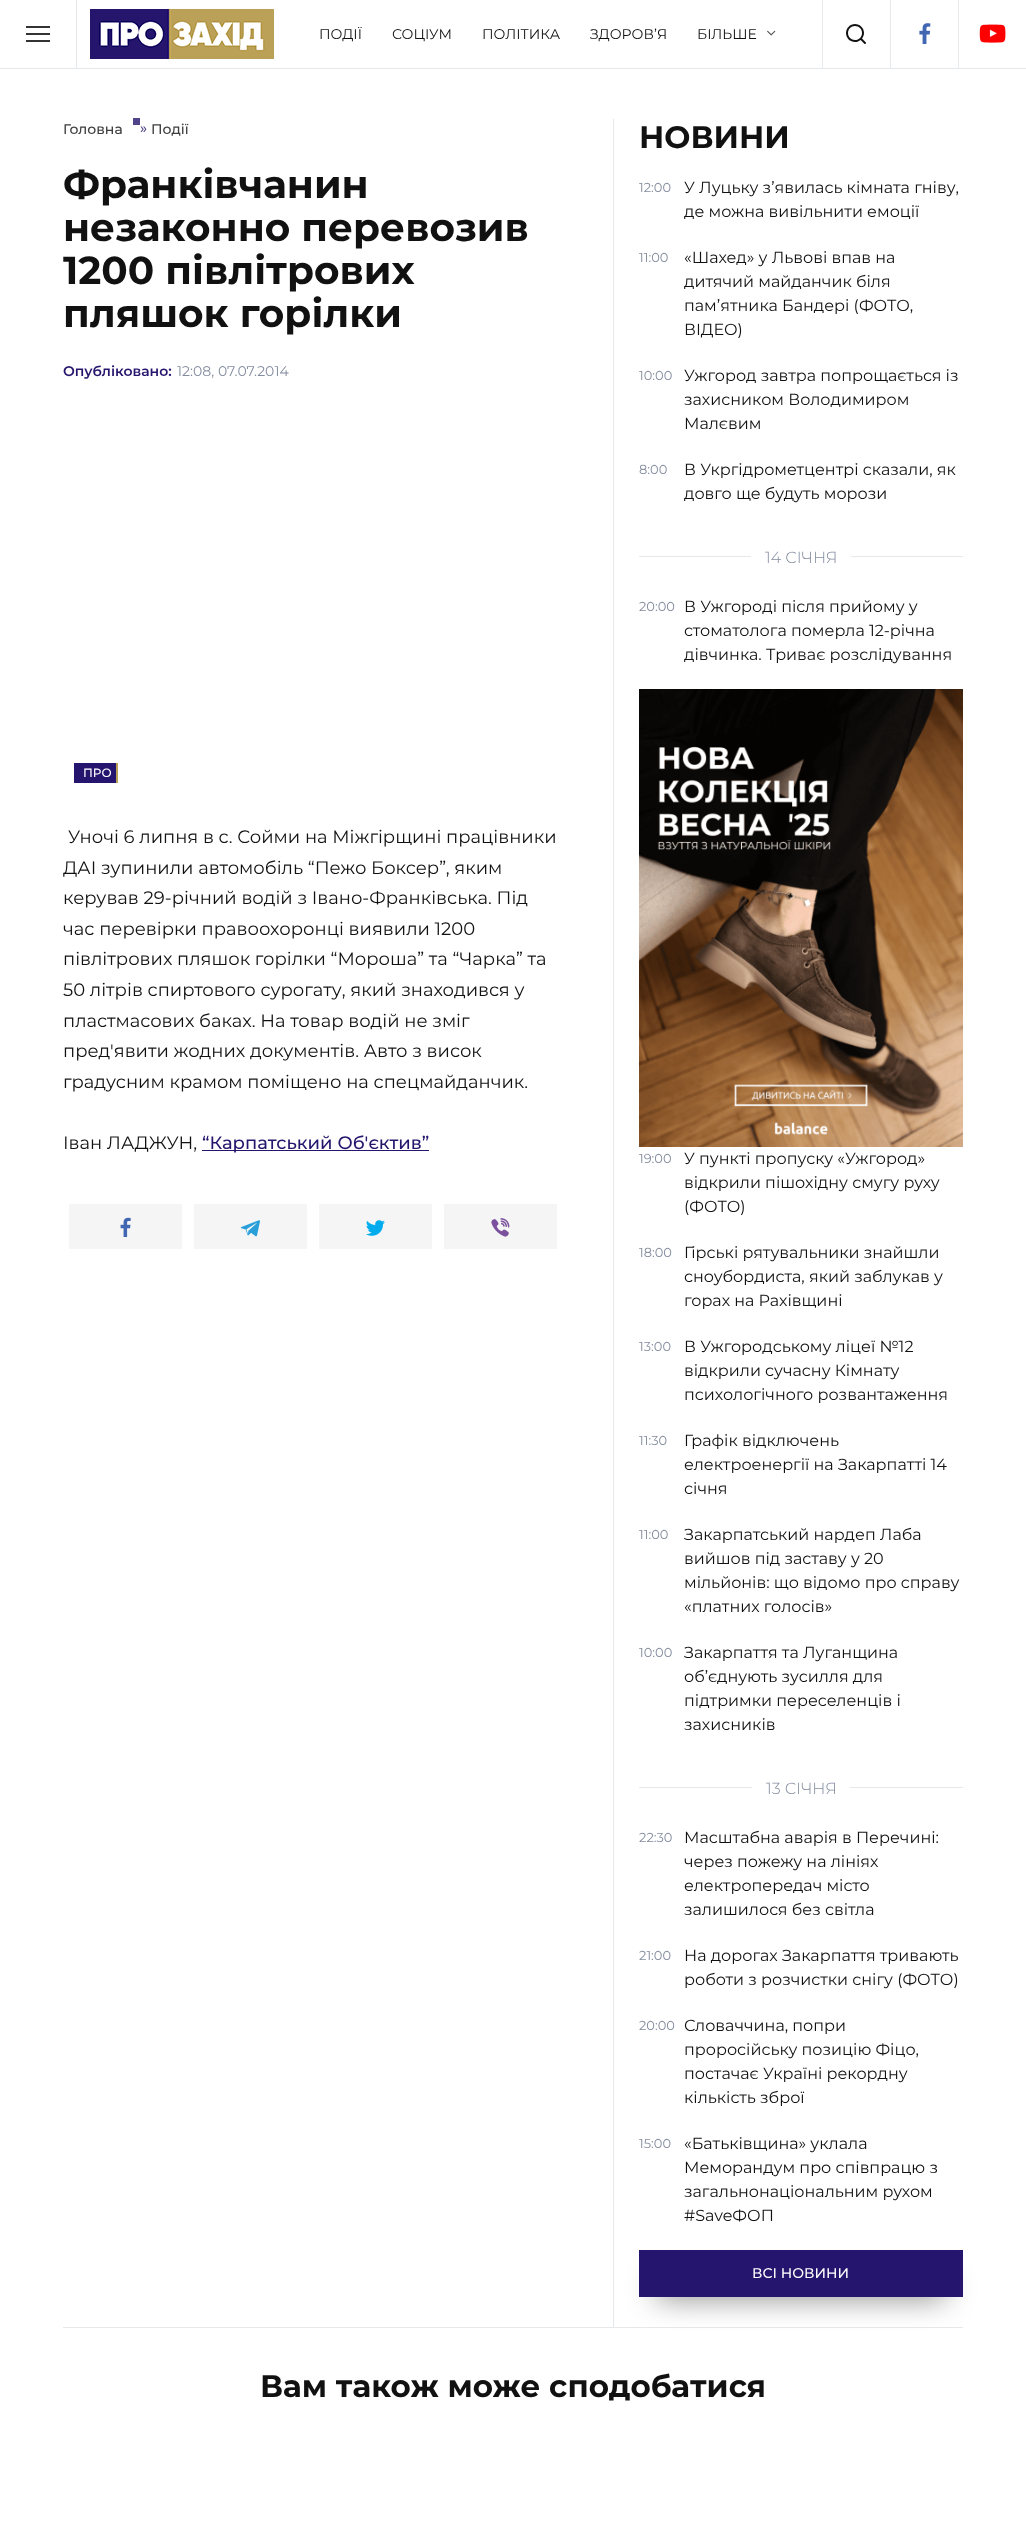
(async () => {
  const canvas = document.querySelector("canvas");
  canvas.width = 1026;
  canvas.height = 2540;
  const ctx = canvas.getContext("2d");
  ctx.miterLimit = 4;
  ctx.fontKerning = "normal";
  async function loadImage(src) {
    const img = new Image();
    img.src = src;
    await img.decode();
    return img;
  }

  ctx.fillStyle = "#ffffff";
  ctx.fillRect(0, 0, 1026, 2540);
  for (const [x, y, w, h, color] of [
    [0, 68, 1026, 1, "#e6e9ec"],
    [76, 0, 1, 68, "#e6e9ec"],
    [26, 26, 24, 2, "#333333"],
    [26, 33, 24, 2, "#333333"],
    [26, 40, 24, 2, "#333333"],
  ]) {
    ctx.fillStyle = color;
    ctx.fillRect(x, y, w, h);
  }
  ctx.drawImage(await loadImage("img/1.png"), 90, 9, 184, 50);
  for (const [x, y, w, h, color] of [
    [890, 0, 1, 69, "#e6e9ec"],
    [822, 0, 1, 69, "#e6e9ec"],
    [958, 0, 1, 69, "#e6e9ec"],
  ]) {
    ctx.fillStyle = color;
    ctx.fillRect(x, y, w, h);
  }
  ctx.drawImage(await loadImage("img/2.png"), 919, 23, 12, 21);
  ctx.drawImage(await loadImage("img/3.png"), 979, 24, 27, 19);
  for (const [x, y, w, h, color] of [
    [63, 2327, 900, 1, "#e6e9ec"],
    [133, 118, 7, 7, "#51448b"],
    [74, 763, 42, 20, "#25156e"],
    [116, 763, 2, 20, "#bba157"],
    [202, 1150, 227, 1, "#25156e"],
    [69, 1204, 113, 45, "#f5f5f5"],
  ]) {
    ctx.fillStyle = color;
    ctx.fillRect(x, y, w, h);
  }
  ctx.drawImage(await loadImage("img/4.png"), 120, 1217, 11, 20);
  ctx.fillRect(194, 1204, 113, 45);
  ctx.drawImage(await loadImage("img/5.png"), 240, 1220, 20, 17);
  ctx.fillRect(319, 1204, 113, 45);
  ctx.drawImage(await loadImage("img/6.png"), 366, 1220, 19, 16);
  ctx.fillRect(444, 1204, 113, 45);
  ctx.drawImage(await loadImage("img/7.png"), 491, 1218, 19, 19);
  for (const [x, y, w, h, color] of [
    [613, 119, 1, 2209, "#e6e9ec"],
    [639, 556, 324, 1, "#e6e9ec"],
    [751, 556, 100, 1, "#ffffff"],
  ]) {
    ctx.fillStyle = color;
    ctx.fillRect(x, y, w, h);
  }
  ctx.drawImage(await loadImage("img/8.png"), 639, 689, 324, 458);
  ctx.fillStyle = "#e6e9ec";
  ctx.fillRect(639, 1787, 324, 1);
  ctx.fillStyle = "#ffffff";
  ctx.fillRect(752, 1787, 98, 1);
  ctx.fillStyle = "rgba(0, 0, 0, 0.9)";
  ctx.filter = "blur(15px)";
  ctx.beginPath();
  ctx.rect(657, 2283, 288, 11);
  ctx.fill();
  ctx.filter = "none";
  ctx.fillStyle = "#25156e";
  ctx.fillRect(639, 2250, 324, 47);
  ctx.font = "14px Montserrat";
  ctx.fillStyle = "#111111";
  for (const [text, x, y] of [
    ["ПОДІЇ", 319, 39],
    ["СОЦІУМ", 392, 39],
    ["ПОЛІТИКА", 482, 39],
    ["ЗДОРОВ’Я", 590, 39],
    ["БІЛЬШЕ", 697, 39],
  ]) {
    ctx.fillText(text, x, y);
  }
  ctx.font = "14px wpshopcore";
  ctx.fillStyle = "#585858";
  ctx.fillText("﹀", 764, 39);
  ctx.font = "24px wpshopcore";
  ctx.fillStyle = "#111111";
  ctx.fillText("🔍", 844, 44);
  ctx.font = "500 14px Montserrat";
  ctx.fillStyle = "#3d3d3d";
  ctx.fillText("Головна", 63, 134);
  ctx.fillStyle = "#51448b";
  ctx.fillText("»", 140, 133);
  ctx.fillStyle = "#3d3d3d";
  ctx.fillText("Події", 151, 134);
  ctx.font = "bold 39px Montserrat";
  ctx.fillStyle = "#111111";
  for (const [text, x, y] of [
    ["Франківчанин", 63, 198],
    ["незаконно перевозив", 63, 241],
    ["1200 півлітрових", 63, 284],
    ["пляшок горілки", 63, 327],
  ]) {
    ctx.fillText(text, x, y);
  }
  ctx.font = "600 14px Montserrat";
  ctx.fillStyle = "#25156d";
  ctx.fillText("Опубліковано:", 63, 376);
  ctx.font = "14px Montserrat";
  ctx.fillStyle = "#838c9e";
  ctx.fillText("12:08, 07.07.2014", 177, 376);
  ctx.font = "500 12px Montserrat";
  ctx.fillStyle = "#ffffff";
  ctx.fillText("ПРО", 83, 777);
  ctx.font = "18px Montserrat";
  ctx.fillStyle = "#111111";
  for (const [text, x, y] of [
    ["Уночі 6 липня в с. Сойми на Міжгірщині працівники", 68, 843],
    ["ДАІ зупинили автомобіль “Пежо Боксер”, яким", 63, 874],
    ["керував 29-річний водій з Івано-Франківська. Під", 63, 904],
    ["час перевірки правоохоронці виявили 1200", 63, 935],
    ["півлітрових пляшок горілки “Мороша” та “Чарка” та", 63, 965],
    ["50 літрів спиртового сурогату, який знаходився у", 63, 996],
    ["пластмасових баках. На товар водій не зміг", 63, 1027],
    ["пред'явити жодних документів. Авто з висок", 63, 1057],
    ["градусним крамом поміщено на спецмайданчик.", 63, 1088],
    ["Іван ЛАДЖУН,", 63, 1149],
  ]) {
    ctx.fillText(text, x, y);
  }
  ctx.font = "500 18px Montserrat";
  ctx.fillStyle = "#25156d";
  ctx.fillText("“Карпатський Об'єктив”", 202, 1149);
  ctx.font = "bold 31px Montserrat";
  ctx.fillStyle = "#111111";
  ctx.fillText("НОВИНИ", 639, 148);
  ctx.font = "13px Montserrat";
  ctx.fillStyle = "#838c9e";
  ctx.fillText("12:00", 639, 192);
  ctx.font = "16px Montserrat";
  ctx.fillStyle = "#111111";
  ctx.fillText("У Луцьку з’явилась кімната гніву,", 684, 193);
  ctx.fillText("де можна вивільнити емоції", 684, 217);
  ctx.font = "13px Montserrat";
  ctx.fillStyle = "#838c9e";
  ctx.fillText("11:00", 639, 262);
  ctx.font = "16px Montserrat";
  ctx.fillStyle = "#111111";
  for (const [text, x, y] of [
    ["«Шахед» у Львові впав на", 684, 263],
    ["дитячий майданчик біля", 684, 287],
    ["памʼятника Бандері (ФОТО,", 684, 311],
    ["ВІДЕО)", 684, 335],
  ]) {
    ctx.fillText(text, x, y);
  }
  ctx.font = "13px Montserrat";
  ctx.fillStyle = "#838c9e";
  ctx.fillText("10:00", 639, 380);
  ctx.font = "16px Montserrat";
  ctx.fillStyle = "#111111";
  for (const [text, x, y] of [
    ["Ужгород завтра попрощається із", 684, 381],
    ["захисником Володимиром", 684, 405],
    ["Малєвим", 684, 429],
  ]) {
    ctx.fillText(text, x, y);
  }
  ctx.font = "13px Montserrat";
  ctx.fillStyle = "#838c9e";
  ctx.fillText("8:00", 639, 474);
  ctx.font = "16px Montserrat";
  ctx.fillStyle = "#111111";
  ctx.fillText("В Укргідрометцентрі сказали, як", 684, 475);
  ctx.fillText("довго ще будуть морози", 684, 499);
  ctx.font = "300 16px Montserrat";
  ctx.fillStyle = "#838c9e";
  ctx.fillText("14 СІЧНЯ", 765, 563);
  ctx.font = "13px Montserrat";
  ctx.fillText("20:00", 639, 611);
  ctx.font = "16px Montserrat";
  ctx.fillStyle = "#111111";
  for (const [text, x, y] of [
    ["В Ужгороді після прийому у", 684, 612],
    ["стоматолога померла 12-річна", 684, 636],
    ["дівчинка. Триває розслідування", 684, 660],
  ]) {
    ctx.fillText(text, x, y);
  }
  ctx.font = "13px Montserrat";
  ctx.fillStyle = "#838c9e";
  ctx.fillText("19:00", 639, 1163);
  ctx.font = "16px Montserrat";
  ctx.fillStyle = "#111111";
  for (const [text, x, y] of [
    ["У пункті пропуску «Ужгород»", 684, 1164],
    ["відкрили пішохідну смугу руху", 684, 1188],
    ["(ФОТО)", 684, 1212],
  ]) {
    ctx.fillText(text, x, y);
  }
  ctx.font = "13px Montserrat";
  ctx.fillStyle = "#838c9e";
  ctx.fillText("18:00", 639, 1257);
  ctx.font = "16px Montserrat";
  ctx.fillStyle = "#111111";
  for (const [text, x, y] of [
    ["Гірські рятувальники знайшли", 684, 1258],
    ["сноубордиста, який заблукав у", 684, 1282],
    ["горах на Рахівщині", 684, 1306],
  ]) {
    ctx.fillText(text, x, y);
  }
  ctx.font = "13px Montserrat";
  ctx.fillStyle = "#838c9e";
  ctx.fillText("13:00", 639, 1351);
  ctx.font = "16px Montserrat";
  ctx.fillStyle = "#111111";
  for (const [text, x, y] of [
    ["В Ужгородському ліцеї №12", 684, 1352],
    ["відкрили сучасну Кімнату", 684, 1376],
    ["психологічного розвантаження", 684, 1400],
  ]) {
    ctx.fillText(text, x, y);
  }
  ctx.font = "13px Montserrat";
  ctx.fillStyle = "#838c9e";
  ctx.fillText("11:30", 639, 1445);
  ctx.font = "16px Montserrat";
  ctx.fillStyle = "#111111";
  for (const [text, x, y] of [
    ["Графік відключень", 684, 1446],
    ["електроенергії на Закарпатті 14", 684, 1470],
    ["січня", 684, 1494],
  ]) {
    ctx.fillText(text, x, y);
  }
  ctx.font = "13px Montserrat";
  ctx.fillStyle = "#838c9e";
  ctx.fillText("11:00", 639, 1539);
  ctx.font = "16px Montserrat";
  ctx.fillStyle = "#111111";
  for (const [text, x, y] of [
    ["Закарпатський нардеп Лаба", 684, 1540],
    ["вийшов під заставу у 20", 684, 1564],
    ["мільйонів: що відомо про справу", 684, 1588],
    ["«платних голосів»", 684, 1612],
  ]) {
    ctx.fillText(text, x, y);
  }
  ctx.font = "13px Montserrat";
  ctx.fillStyle = "#838c9e";
  ctx.fillText("10:00", 639, 1657);
  ctx.font = "16px Montserrat";
  ctx.fillStyle = "#111111";
  for (const [text, x, y] of [
    ["Закарпаття та Луганщина", 684, 1658],
    ["об’єднують зусилля для", 684, 1682],
    ["підтримки переселенців і", 684, 1706],
    ["захисників", 684, 1730],
  ]) {
    ctx.fillText(text, x, y);
  }
  ctx.font = "300 16px Montserrat";
  ctx.fillStyle = "#838c9e";
  ctx.fillText("13 СІЧНЯ", 766, 1794);
  ctx.font = "13px Montserrat";
  ctx.fillText("22:30", 639, 1842);
  ctx.font = "16px Montserrat";
  ctx.fillStyle = "#111111";
  for (const [text, x, y] of [
    ["Масштабна аварія в Перечині:", 684, 1843],
    ["через пожежу на лініях", 684, 1867],
    ["електропередач місто", 684, 1891],
    ["залишилося без світла", 684, 1915],
  ]) {
    ctx.fillText(text, x, y);
  }
  ctx.font = "13px Montserrat";
  ctx.fillStyle = "#838c9e";
  ctx.fillText("21:00", 639, 1960);
  ctx.font = "16px Montserrat";
  ctx.fillStyle = "#111111";
  ctx.fillText("На дорогах Закарпаття тривають", 684, 1961);
  ctx.fillText("роботи з розчистки снігу (ФОТО)", 684, 1985);
  ctx.font = "13px Montserrat";
  ctx.fillStyle = "#838c9e";
  ctx.fillText("20:00", 639, 2030);
  ctx.font = "16px Montserrat";
  ctx.fillStyle = "#111111";
  for (const [text, x, y] of [
    ["Словаччина, попри", 684, 2031],
    ["проросійську позицію Фіцо,", 684, 2055],
    ["постачає Україні рекордну", 684, 2079],
    ["кількість зброї", 684, 2103],
  ]) {
    ctx.fillText(text, x, y);
  }
  ctx.font = "13px Montserrat";
  ctx.fillStyle = "#838c9e";
  ctx.fillText("15:00", 639, 2148);
  ctx.font = "16px Montserrat";
  ctx.fillStyle = "#111111";
  for (const [text, x, y] of [
    ["«Батьківщина» уклала", 684, 2149],
    ["Меморандум про співпрацю з", 684, 2173],
    ["загальнонаціональним рухом", 684, 2197],
    ["#SaveФОП", 684, 2221],
  ]) {
    ctx.fillText(text, x, y);
  }
  ctx.font = "500 14px Montserrat";
  ctx.fillStyle = "#ffffff";
  ctx.fillText("ВСІ НОВИНИ", 752, 2278);
  ctx.font = "bold 31px Montserrat";
  ctx.fillStyle = "#111111";
  ctx.fillText("Вам також може сподобатися", 260, 2397);
})();
